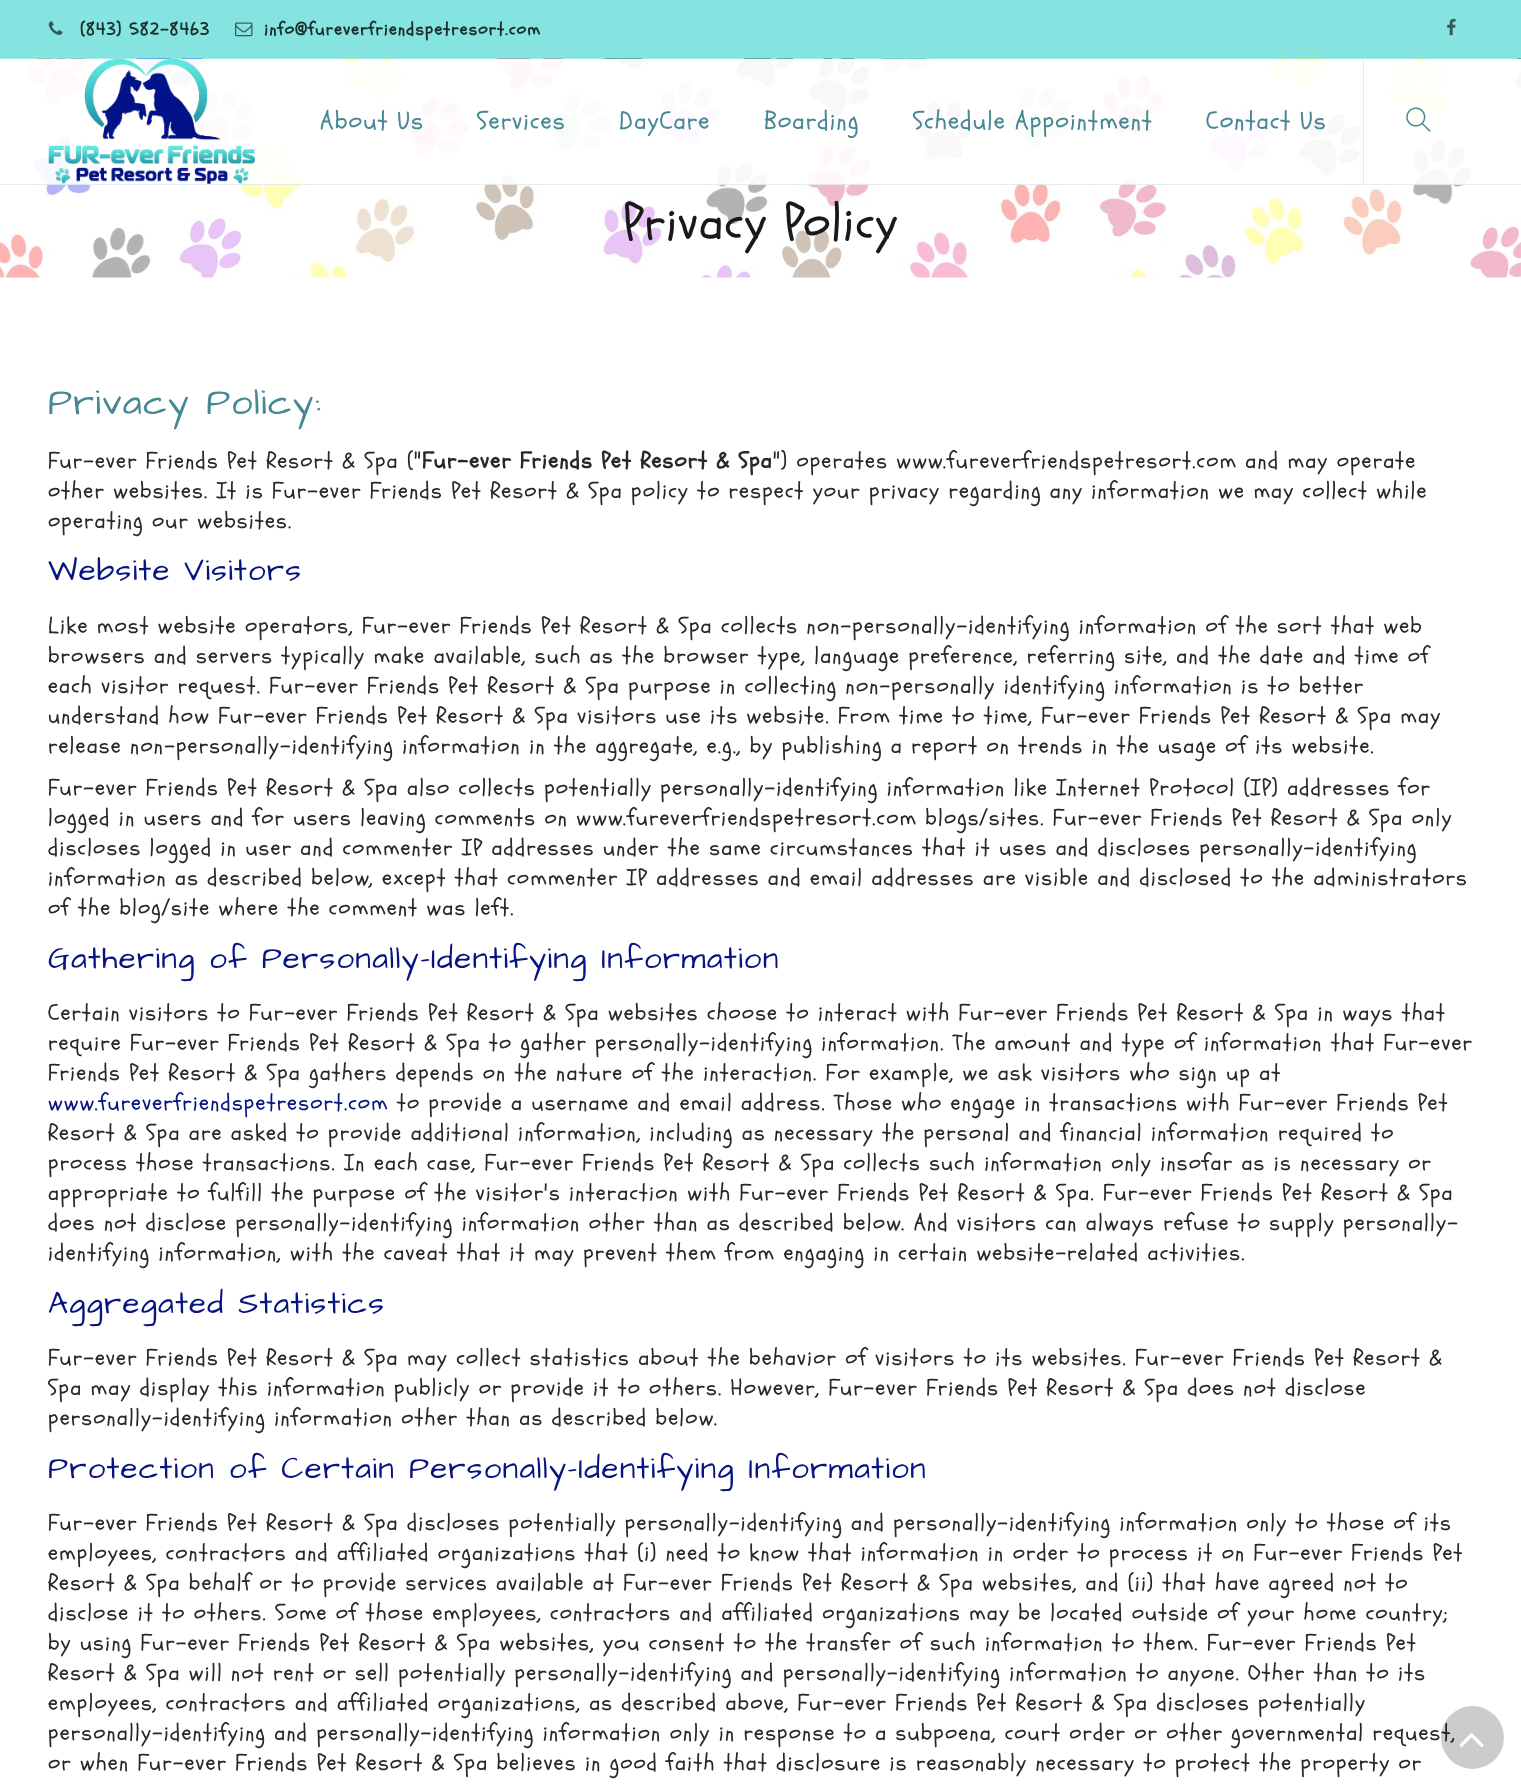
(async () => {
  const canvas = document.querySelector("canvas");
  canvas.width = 1521;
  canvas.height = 1786;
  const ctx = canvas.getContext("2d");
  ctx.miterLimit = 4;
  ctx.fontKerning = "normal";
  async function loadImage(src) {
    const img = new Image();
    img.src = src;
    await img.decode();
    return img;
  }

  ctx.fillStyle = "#ffffff";
  ctx.fillRect(0, 0, 1521, 1786);
  ctx.fillStyle = "#85e4df";
  ctx.fillRect(0, 0, 1521, 59);
  ctx.drawImage(await loadImage("img/1.png"), 48, 21, 15, 14);
  ctx.drawImage(await loadImage("img/2.png"), 235, 22, 18, 15);
  ctx.drawImage(await loadImage("img/3.png"), 1447, 18, 9, 18);
  ctx.drawImage(await loadImage("img/6.png"), 0, 58, 1521, 220);
  ctx.fillStyle = "rgba(255, 255, 255, 0.9)";
  ctx.fillRect(25, 59, 1496, 126);
  ctx.drawImage(await loadImage("img/4.png"), 48, 58, 207, 126);
  ctx.fillStyle = "#e3edef";
  ctx.fillRect(1363, 59, 1, 125);
  ctx.drawImage(await loadImage("img/5.png"), 1406, 107, 25, 25);
  ctx.fillStyle = "rgba(71, 136, 148, 0.15)";
  ctx.fillRect(0, 184, 1521, 1);
  ctx.letterSpacing = "1.25px";
  ctx.font = "bold 17.5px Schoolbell";
  ctx.fillStyle = "#1b2e2d";
  ctx.fillText("(843) 582-8463", 80, 35);
  ctx.fillText("info@fureverfriendspetresort.com", 264, 35);
  ctx.font = "25px Schoolbell";
  ctx.fillStyle = "#478894";
  for (const [text, x, y] of [
    ["About Us", 320, 129],
    ["Services", 477, 129],
    ["DayCare", 619, 129],
    ["Boarding", 764, 129],
    ["Schedule Appointment", 913, 129],
    ["Contact Us", 1206, 129],
  ]) {
    ctx.fillText(text, x, y);
  }
  ctx.font = "50px Schoolbell";
  ctx.fillStyle = "#191919";
  ctx.fillText("Privacy Policy", 623, 239);
  ctx.font = "37.5px Architects Daughter";
  ctx.fillStyle = "#478894";
  ctx.fillText("Privacy Policy:", 48, 414);
  ctx.font = "22.5px Schoolbell";
  ctx.fillStyle = "#282828";
  ctx.fillText("Fur-ever Friends Pet Resort & Spa (\"", 48, 468);
  ctx.font = "bold 22.5px Schoolbell";
  ctx.fillText("Fur-ever Friends Pet Resort & Spa", 422, 468);
  ctx.font = "22.5px Schoolbell";
  for (const [text, x, y] of [
    ["\") operates www.fureverfriendspetresort.com and may operate", 773, 468],
    ["other websites. It is Fur-ever Friends Pet Resort & Spa policy to respect your privacy regarding any information we may collect while", 48, 498],
    ["operating our websites.", 48, 528],
  ]) {
    ctx.fillText(text, x, y);
  }
  ctx.font = "31.25px Architects Daughter";
  ctx.fillStyle = "#061383";
  ctx.fillText("Website Visitors", 48, 580);
  ctx.font = "22.5px Schoolbell";
  ctx.fillStyle = "#282828";
  for (const [text, x, y] of [
    ["Like most website operators, Fur-ever Friends Pet Resort & Spa collects non-personally-identifying information of the sort that web", 48, 633],
    ["browsers and servers typically make available, such as the browser type, language preference, referring site, and the date and time of", 48, 663],
    ["each visitor request. Fur-ever Friends Pet Resort & Spa purpose in collecting non-personally identifying information is to better", 48, 693],
    ["understand how Fur-ever Friends Pet Resort & Spa visitors use its website. From time to time, Fur-ever Friends Pet Resort & Spa may", 48, 723],
    ["release non-personally-identifying information in the aggregate, e.g., by publishing a report on trends in the usage of its website.", 48, 753],
    ["Fur-ever Friends Pet Resort & Spa also collects potentially personally-identifying information like Internet Protocol (IP) addresses for", 48, 795],
    ["logged in users and for users leaving comments on www.fureverfriendspetresort.com blogs/sites. Fur-ever Friends Pet Resort & Spa only", 48, 825],
    ["discloses logged in user and commenter IP addresses under the same circumstances that it uses and discloses personally-identifying", 48, 855],
    ["information as described below, except that commenter IP addresses and email addresses are visible and disclosed to the administrators", 48, 885],
    ["of the blog/site where the comment was left.", 48, 915],
  ]) {
    ctx.fillText(text, x, y);
  }
  ctx.font = "31.25px Architects Daughter";
  ctx.fillStyle = "#061383";
  ctx.fillText("Gathering of Personally-Identifying Information", 48, 968);
  ctx.font = "22.5px Schoolbell";
  ctx.fillStyle = "#282828";
  for (const [text, x, y] of [
    ["Certain visitors to Fur-ever Friends Pet Resort & Spa websites choose to interact with Fur-ever Friends Pet Resort & Spa in ways that", 48, 1020],
    ["require Fur-ever Friends Pet Resort & Spa to gather personally-identifying information. The amount and type of information that Fur-ever", 48, 1050],
    ["Friends Pet Resort & Spa gathers depends on the nature of the interaction. For example, we ask visitors who sign up at", 48, 1080],
  ]) {
    ctx.fillText(text, x, y);
  }
  ctx.fillStyle = "#061383";
  ctx.fillText("www.fureverfriendspetresort.com", 48, 1110);
  ctx.fillStyle = "#282828";
  for (const [text, x, y] of [
    ["to provide a username and email address. Those who engage in transactions with Fur-ever Friends Pet", 397, 1110],
    ["Resort & Spa are asked to provide additional information, including as necessary the personal and financial information required to", 48, 1140],
    ["process those transactions. In each case, Fur-ever Friends Pet Resort & Spa collects such information only insofar as is necessary or", 48, 1170],
    ["appropriate to fulfill the purpose of the visitor's interaction with Fur-ever Friends Pet Resort & Spa. Fur-ever Friends Pet Resort & Spa", 48, 1200],
    ["does not disclose personally-identifying information other than as described below. And visitors can always refuse to supply personally-", 48, 1230],
    ["identifying information, with the caveat that it may prevent them from engaging in certain website-related activities.", 48, 1260],
  ]) {
    ctx.fillText(text, x, y);
  }
  ctx.font = "31.25px Architects Daughter";
  ctx.fillStyle = "#061383";
  ctx.fillText("Aggregated Statistics", 48, 1313);
  ctx.font = "22.5px Schoolbell";
  ctx.fillStyle = "#282828";
  for (const [text, x, y] of [
    ["Fur-ever Friends Pet Resort & Spa may collect statistics about the behavior of visitors to its websites. Fur-ever Friends Pet Resort &", 48, 1365],
    ["Spa may display this information publicly or provide it to others. However, Fur-ever Friends Pet Resort & Spa does not disclose", 48, 1395],
    ["personally-identifying information other than as described below.", 48, 1425],
  ]) {
    ctx.fillText(text, x, y);
  }
  ctx.font = "31.25px Architects Daughter";
  ctx.fillStyle = "#061383";
  ctx.fillText("Protection of Certain Personally-Identifying Information", 48, 1478);
  ctx.font = "22.5px Schoolbell";
  ctx.fillStyle = "#282828";
  for (const [text, x, y] of [
    ["Fur-ever Friends Pet Resort & Spa discloses potentially personally-identifying and personally-identifying information only to those of its", 48, 1530],
    ["employees, contractors and affiliated organizations that (i) need to know that information in order to process it on Fur-ever Friends Pet", 48, 1560],
    ["Resort & Spa behalf or to provide services available at Fur-ever Friends Pet Resort & Spa websites, and (ii) that have agreed not to", 48, 1590],
    ["disclose it to others. Some of those employees, contractors and affiliated organizations may be located outside of your home country;", 48, 1620],
    ["by using Fur-ever Friends Pet Resort & Spa websites, you consent to the transfer of such information to them. Fur-ever Friends Pet", 48, 1650],
    ["Resort & Spa will not rent or sell potentially personally-identifying and personally-identifying information to anyone. Other than to its", 48, 1680],
    ["employees, contractors and affiliated organizations, as described above, Fur-ever Friends Pet Resort & Spa discloses potentially", 48, 1710],
    ["personally-identifying and personally-identifying information only in response to a subpoena, court order or other governmental request,", 48, 1740],
    ["or when Fur-ever Friends Pet Resort & Spa believes in good faith that disclosure is reasonably necessary to protect the property or", 48, 1770],
  ]) {
    ctx.fillText(text, x, y);
  }
  ctx.fillStyle = "rgba(0, 0, 0, 0.2)";
  ctx.beginPath();
  ctx.arc(1472.5, 1737.5, 31.5, 0, Math.PI * 2);
  ctx.fill();
  ctx.drawImage(await loadImage("img/7.png"), 1459, 1733, 25, 14);
})();
